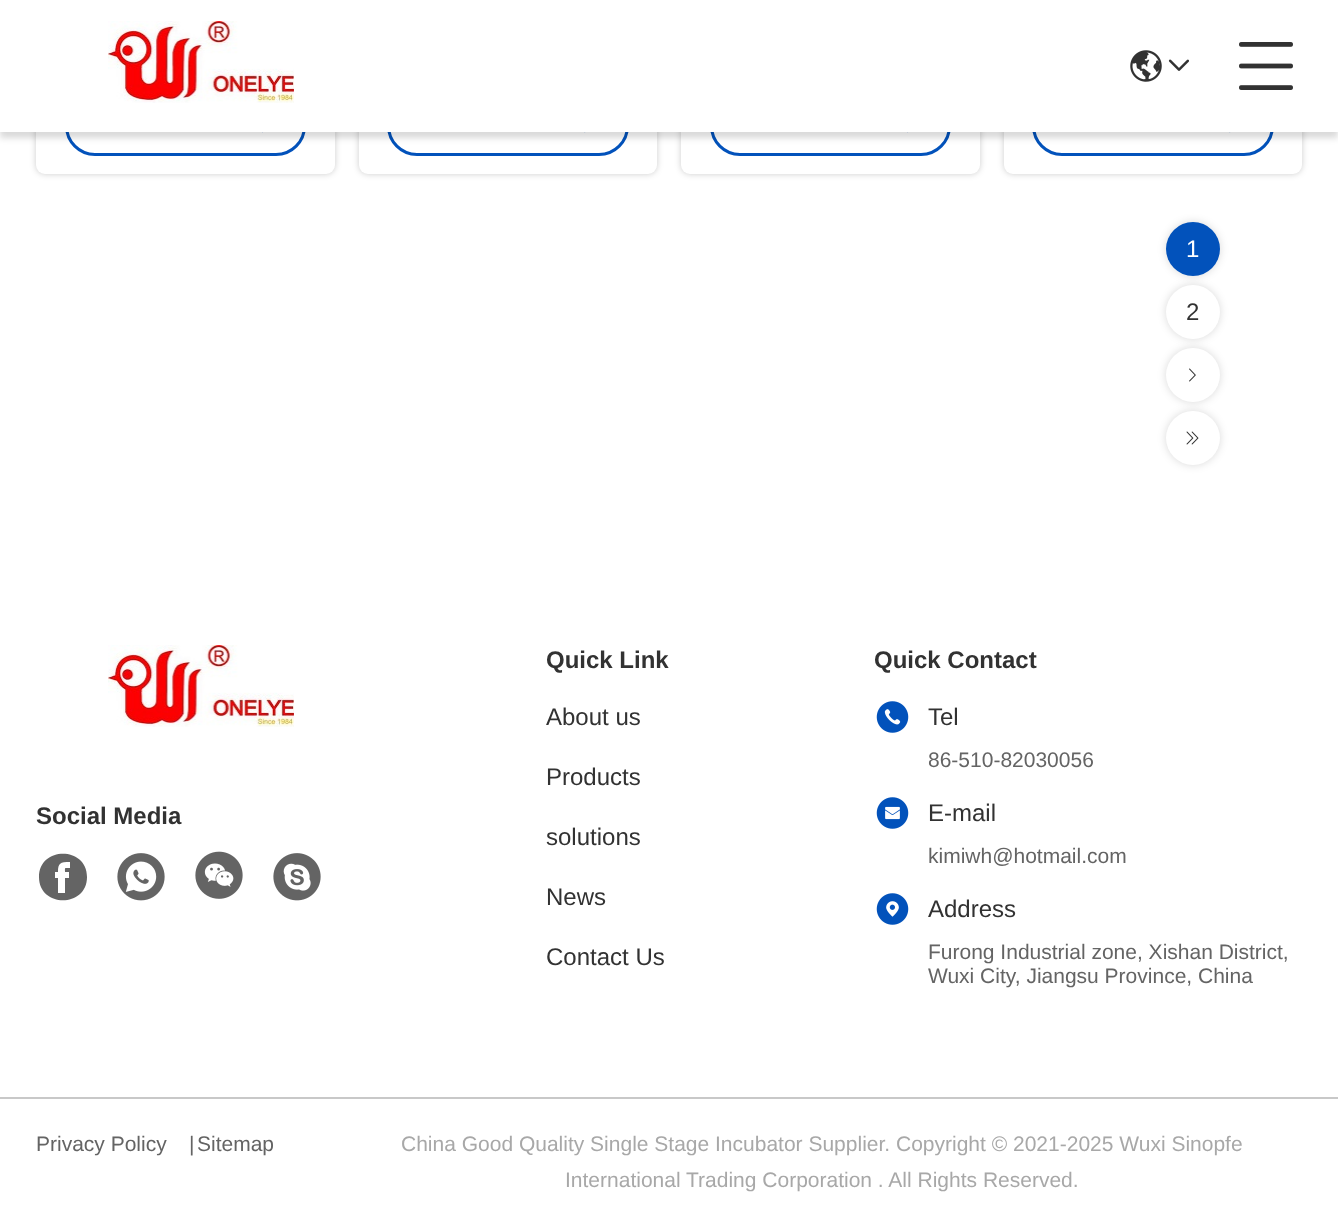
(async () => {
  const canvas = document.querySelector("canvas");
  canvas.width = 1338;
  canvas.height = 1214;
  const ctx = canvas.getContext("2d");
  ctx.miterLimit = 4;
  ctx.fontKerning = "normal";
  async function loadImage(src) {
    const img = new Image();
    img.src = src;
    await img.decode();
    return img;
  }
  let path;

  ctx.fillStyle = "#ffffff";
  ctx.fillRect(0, 0, 1338, 1214);
  ctx.fillStyle = "rgba(0, 0, 0, 0.2)";
  ctx.filter = "blur(3px)";
  ctx.beginPath();
  ctx.roundRect(36, -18, 299, 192, 9);
  ctx.fill();
  ctx.filter = "none";
  ctx.fillStyle = "#ffffff";
  ctx.beginPath();
  ctx.roundRect(36, -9, 299, 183, 9);
  ctx.fill();
  ctx.beginPath();
  ctx.roundRect(66.5, 97.5, 238, 57, 28.5);
  ctx.strokeStyle = "#0252bb";
  ctx.lineWidth = 3;
  ctx.stroke();
  ctx.drawImage(await loadImage("img/5.png"), 262, 132, 1, 1);
  ctx.fillStyle = "rgba(0, 0, 0, 0.2)";
  ctx.filter = "blur(3px)";
  ctx.beginPath();
  ctx.roundRect(359, -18, 298, 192, 9);
  ctx.fill();
  ctx.filter = "none";
  ctx.fillStyle = "#ffffff";
  ctx.beginPath();
  ctx.roundRect(359, -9, 298, 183, 9);
  ctx.fill();
  ctx.beginPath();
  ctx.roundRect(388.5, 97.5, 239, 57, 28.5);
  ctx.stroke();
  ctx.drawImage(await loadImage("img/6.png"), 584, 132, 2, 1);
  ctx.fillStyle = "rgba(0, 0, 0, 0.2)";
  ctx.filter = "blur(3px)";
  ctx.beginPath();
  ctx.roundRect(681, -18, 299, 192, 9);
  ctx.fill();
  ctx.filter = "none";
  ctx.fillStyle = "#ffffff";
  ctx.beginPath();
  ctx.roundRect(681, -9, 299, 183, 9);
  ctx.fill();
  ctx.beginPath();
  ctx.roundRect(711.5, 97.5, 238, 57, 28.5);
  ctx.stroke();
  ctx.drawImage(await loadImage("img/5.png"), 907, 132, 1, 1);
  ctx.fillStyle = "rgba(0, 0, 0, 0.2)";
  ctx.filter = "blur(3px)";
  ctx.beginPath();
  ctx.roundRect(1004, -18, 298, 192, 9);
  ctx.fill();
  ctx.filter = "none";
  ctx.fillStyle = "#ffffff";
  ctx.beginPath();
  ctx.roundRect(1004, -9, 298, 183, 9);
  ctx.fill();
  ctx.beginPath();
  ctx.roundRect(1033.5, 97.5, 239, 57, 28.5);
  ctx.stroke();
  ctx.drawImage(await loadImage("img/6.png"), 1229, 132, 2, 1);
  ctx.fillStyle = "rgba(0, 0, 0, 0.15)";
  ctx.filter = "blur(3px)";
  ctx.beginPath();
  ctx.rect(0, 6, 1338, 132);
  ctx.fill();
  ctx.filter = "none";
  ctx.fillStyle = "#ffffff";
  ctx.fillRect(0, 0, 1338, 132);
  ctx.drawImage(await loadImage("img/1.png"), 108, 21, 186, 82);
  ctx.drawImage(await loadImage("img/2.png"), 1130, 50, 32, 32);
  ctx.drawImage(await loadImage("img/3.png"), 1168, 59, 21, 12);
  ctx.drawImage(await loadImage("img/4.png"), 1239, 42, 54, 48);
  ctx.fillStyle = "rgba(0, 0, 0, 0.15)";
  ctx.filter = "blur(4.5px)";
  ctx.beginPath();
  ctx.roundRect(1166, 222, 54, 54, 27);
  ctx.fill();
  ctx.filter = "none";
  ctx.fillStyle = "#0252bb";
  ctx.beginPath();
  ctx.arc(1193, 249, 27, 0, Math.PI * 2);
  ctx.fill();
  ctx.fillStyle = "rgba(0, 0, 0, 0.15)";
  ctx.filter = "blur(4.5px)";
  ctx.beginPath();
  ctx.roundRect(1166, 285, 54, 54, 27);
  ctx.fill();
  ctx.filter = "none";
  ctx.fillStyle = "#ffffff";
  ctx.beginPath();
  ctx.arc(1193, 312, 27, 0, Math.PI * 2);
  ctx.fill();
  ctx.fillStyle = "rgba(0, 0, 0, 0.15)";
  ctx.filter = "blur(4.5px)";
  ctx.beginPath();
  ctx.roundRect(1166, 348, 54, 54, 27);
  ctx.fill();
  ctx.filter = "none";
  ctx.fillStyle = "#ffffff";
  ctx.beginPath();
  ctx.arc(1193, 375, 27, 0, Math.PI * 2);
  ctx.fill();
  ctx.drawImage(await loadImage("img/7.png"), 1189, 368, 7, 14);
  ctx.fillStyle = "rgba(0, 0, 0, 0.15)";
  ctx.filter = "blur(4.5px)";
  ctx.beginPath();
  ctx.roundRect(1166, 411, 54, 54, 27);
  ctx.fill();
  ctx.filter = "none";
  ctx.fillStyle = "#ffffff";
  ctx.beginPath();
  ctx.arc(1193, 438, 27, 0, Math.PI * 2);
  ctx.fill();
  ctx.drawImage(await loadImage("img/8.png"), 1186, 431, 13, 14);
  ctx.drawImage(await loadImage("img/9.png"), 108, 645, 186, 82);
  ctx.fillStyle = "#646464";
  path = new Path2D("M39 877C39 846 87 846 87 877C87 908 39 908 39 877ZM69 878V872H65C65 867 64 868 70 868V862C60 862 58 863 58 872H55V878H58V893H65V878Z");
  ctx.fill(path);
  ctx.drawImage(await loadImage("img/10.png"), 117, 853, 48, 48);
  ctx.drawImage(await loadImage("img/11.png"), 195, 851, 48, 48);
  ctx.drawImage(await loadImage("img/12.png"), 273, 853, 48, 48);
  ctx.drawImage(await loadImage("img/13.png"), 876, 701, 33, 32);
  ctx.drawImage(await loadImage("img/14.png"), 876, 797, 33, 32);
  ctx.drawImage(await loadImage("img/15.png"), 876, 893, 33, 32);
  ctx.fillStyle = "#c8c8c8";
  ctx.fillRect(0, 1097, 1338, 2);
  ctx.font = "24px Liberation Sans";
  ctx.fillStyle = "#ffffff";
  ctx.fillText("1", 1186, 257);
  ctx.fillStyle = "#323232";
  ctx.fillText("2", 1186, 320);
  ctx.font = "bold 24px Liberation Sans";
  ctx.fillText("Social Media", 36, 824);
  ctx.fillText("Quick Link", 546, 668);
  ctx.font = "24px Liberation Sans";
  for (const [text, x, y] of [
    ["About us", 546, 725],
    ["Products", 546, 785],
    ["solutions", 546, 845],
    ["News", 546, 905],
    ["Contact Us", 546, 965],
  ]) {
    ctx.fillText(text, x, y);
  }
  ctx.font = "bold 24px Liberation Sans";
  ctx.fillText("Quick Contact", 874, 668);
  ctx.font = "24px Liberation Sans";
  ctx.fillText("Tel", 928, 725);
  ctx.font = "21px Liberation Sans";
  ctx.fillStyle = "#646464";
  ctx.fillText("86-510-82030056", 928, 767);
  ctx.font = "24px Liberation Sans";
  ctx.fillStyle = "#323232";
  ctx.fillText("E-mail", 928, 821);
  ctx.font = "21px Liberation Sans";
  ctx.fillStyle = "#646464";
  ctx.fillText("kimiwh@hotmail.com", 928, 863);
  ctx.font = "24px Liberation Sans";
  ctx.fillStyle = "#323232";
  ctx.fillText("Address", 928, 917);
  ctx.font = "21px Liberation Sans";
  ctx.fillStyle = "#646464";
  for (const [text, x, y] of [
    ["Furong Industrial zone, Xishan District,", 928, 959],
    ["Wuxi City, Jiangsu Province, China", 928, 983],
    ["Privacy Policy", 36, 1151],
    ["|", 189, 1151],
    ["Sitemap", 197, 1151],
  ]) {
    ctx.fillText(text, x, y);
  }
  ctx.fillStyle = "#a8a8a8";
  ctx.fillText("China Good Quality Single Stage Incubator Supplier. Copyright © 2021-2025 Wuxi Sinopfe", 401, 1151);
  ctx.fillText("International Trading Corporation . All Rights Reserved.", 565, 1187);
})();
